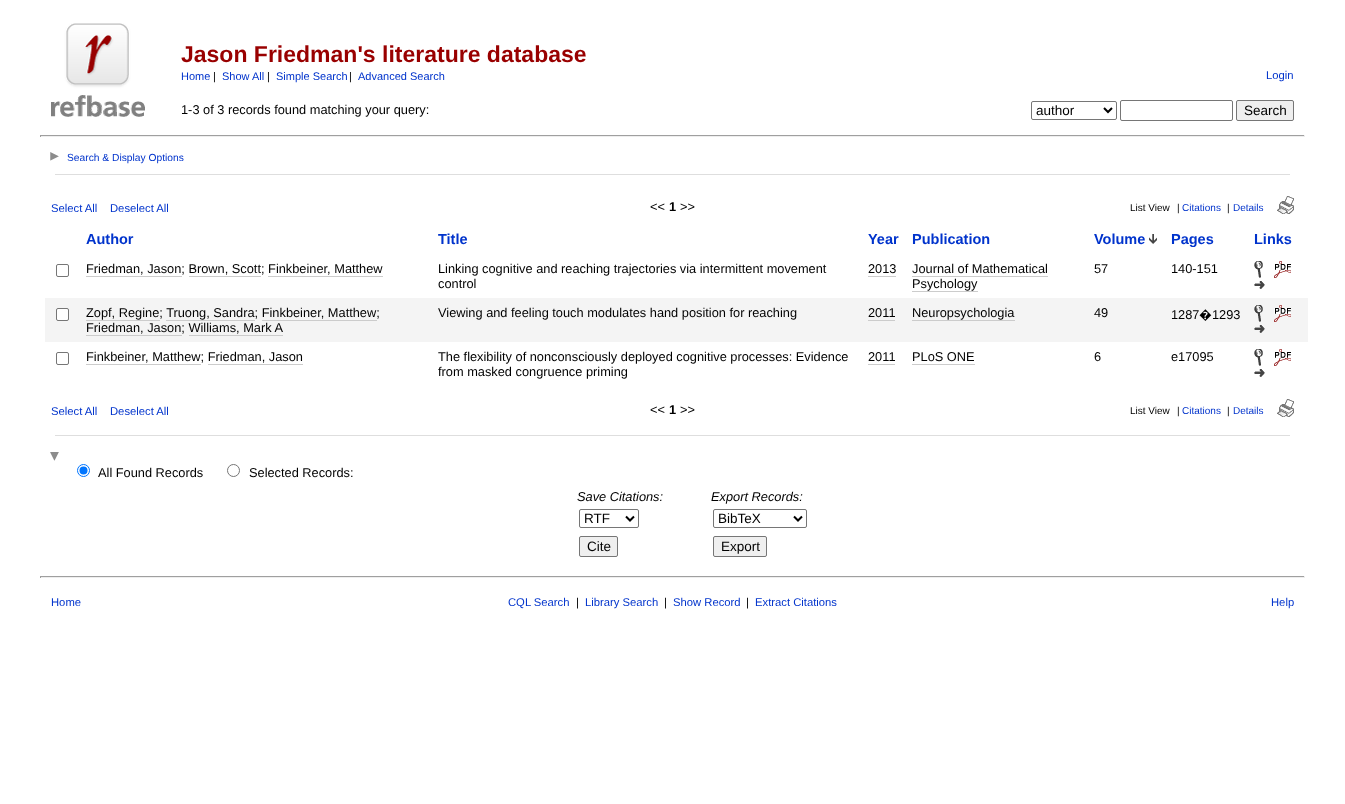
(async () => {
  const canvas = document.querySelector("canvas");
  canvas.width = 1345;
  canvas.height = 804;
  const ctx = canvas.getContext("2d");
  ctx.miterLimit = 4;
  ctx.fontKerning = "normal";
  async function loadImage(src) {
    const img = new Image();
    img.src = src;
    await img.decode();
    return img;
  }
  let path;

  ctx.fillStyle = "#ffffff";
  ctx.fillRect(0, 0, 1345, 804);
  ctx.drawImage(await loadImage("img/1.png"), 51, 23, 94, 94);
  ctx.beginPath();
  ctx.roundRect(1031.5, 101.5, 85, 18, 1.5);
  ctx.strokeStyle = "#767676";
  ctx.stroke();
  path = new Path2D("M1104 108L1108 112L1112 108");
  ctx.strokeStyle = "#000000";
  ctx.lineWidth = 2;
  ctx.stroke(path);
  ctx.beginPath();
  ctx.roundRect(1120.5, 100.5, 112, 20, 1.5);
  ctx.strokeStyle = "#767676";
  ctx.lineWidth = 1;
  ctx.stroke();
  ctx.fillStyle = "#efefef";
  ctx.beginPath();
  ctx.roundRect(1236.5, 100.5, 57, 20, 1.5);
  ctx.fill();
  ctx.stroke();
  for (const [x, y, w, h, color] of [
    [40, 135, 1265, 1, "#9f9f9f"],
    [1304, 135, 1, 2, "#eeeeee"],
    [40, 136, 1265, 1, "#eeeeee"],
    [40, 135, 1, 2, "#9f9f9f"],
  ]) {
    ctx.fillStyle = color;
    ctx.fillRect(x, y, w, h);
  }
  ctx.drawImage(await loadImage("img/2.png"), 50, 152, 9, 9);
  ctx.fillStyle = "#dedede";
  ctx.fillRect(55, 174, 1235, 1);
  ctx.drawImage(await loadImage("img/3.png"), 1277, 196, 17, 18);
  ctx.drawImage(await loadImage("img/4.png"), 1149, 234, 8, 10);
  ctx.beginPath();
  ctx.roundRect(56.5, 264.5, 12, 12, 1.5);
  ctx.stroke();
  for (const [x, y, w, h, color] of [
    [86, 276, 96, 1, "#cccccc"],
    [189, 276, 72, 1, "#cccccc"],
    [268, 276, 115, 1, "#cccccc"],
    [868, 276, 28, 1, "#cccccc"],
    [912, 276, 136, 1, "#cccccc"],
    [912, 291, 66, 1, "#cccccc"],
  ]) {
    ctx.fillStyle = color;
    ctx.fillRect(x, y, w, h);
  }
  ctx.drawImage(await loadImage("img/5.png"), 1254, 261, 9, 17);
  ctx.drawImage(await loadImage("img/6.png"), 1274, 261, 17, 17);
  ctx.drawImage(await loadImage("img/7.png"), 1254, 281, 11, 8);
  ctx.fillStyle = "#f4f4f4";
  ctx.fillRect(45, 298, 1263, 44);
  ctx.fillStyle = "#ffffff";
  ctx.beginPath();
  ctx.roundRect(56.5, 308.5, 12, 12, 1.5);
  ctx.fill();
  ctx.stroke();
  for (const [x, y, w, h, color] of [
    [86, 320, 74, 1, "#cccccc"],
    [166, 320, 89, 1, "#cccccc"],
    [262, 320, 115, 1, "#cccccc"],
    [86, 335, 96, 1, "#cccccc"],
    [189, 335, 94, 1, "#cccccc"],
    [868, 320, 27, 1, "#cccccc"],
    [912, 320, 103, 1, "#cccccc"],
  ]) {
    ctx.fillStyle = color;
    ctx.fillRect(x, y, w, h);
  }
  ctx.drawImage(await loadImage("img/8.png"), 1254, 305, 9, 17);
  ctx.drawImage(await loadImage("img/9.png"), 1274, 305, 17, 17);
  ctx.drawImage(await loadImage("img/10.png"), 1254, 325, 11, 8);
  ctx.beginPath();
  ctx.roundRect(56.5, 352.5, 12, 12, 1.5);
  ctx.stroke();
  for (const [x, y, w, h, color] of [
    [86, 364, 115, 1, "#cccccc"],
    [208, 364, 95, 1, "#cccccc"],
    [868, 364, 27, 1, "#cccccc"],
    [912, 364, 63, 1, "#cccccc"],
  ]) {
    ctx.fillStyle = color;
    ctx.fillRect(x, y, w, h);
  }
  ctx.drawImage(await loadImage("img/5.png"), 1254, 349, 9, 17);
  ctx.drawImage(await loadImage("img/6.png"), 1274, 349, 17, 17);
  ctx.drawImage(await loadImage("img/7.png"), 1254, 369, 11, 8);
  ctx.drawImage(await loadImage("img/3.png"), 1277, 399, 17, 18);
  ctx.fillStyle = "#dedede";
  ctx.fillRect(55, 435, 1235, 1);
  ctx.drawImage(await loadImage("img/11.png"), 50, 452, 9, 9);
  ctx.beginPath();
  ctx.arc(83.5, 470.5, 6, 0, Math.PI * 2);
  ctx.strokeStyle = "#0075ff";
  ctx.stroke();
  ctx.fillStyle = "#0075ff";
  ctx.beginPath();
  ctx.arc(83.5, 470.5, 4, 0, Math.PI * 2);
  ctx.fill();
  ctx.beginPath();
  ctx.arc(233.5, 470.5, 6, 0, Math.PI * 2);
  ctx.strokeStyle = "#767676";
  ctx.stroke();
  ctx.beginPath();
  ctx.roundRect(579.5, 509.5, 59, 18, 1.5);
  ctx.stroke();
  path = new Path2D("M626 516.5L630 520.5L634 516.5");
  ctx.strokeStyle = "#000000";
  ctx.lineWidth = 2;
  ctx.stroke(path);
  ctx.fillStyle = "#efefef";
  ctx.beginPath();
  ctx.roundRect(579.5, 536.5, 38, 20, 1.5);
  ctx.fill();
  ctx.strokeStyle = "#767676";
  ctx.lineWidth = 1;
  ctx.stroke();
  ctx.beginPath();
  ctx.roundRect(713.5, 509.5, 93, 18, 1.5);
  ctx.stroke();
  path = new Path2D("M794 516.5L798 520.5L802 516.5");
  ctx.strokeStyle = "#000000";
  ctx.lineWidth = 2;
  ctx.stroke(path);
  ctx.beginPath();
  ctx.roundRect(713.5, 536.5, 53, 20, 1.5);
  ctx.fill();
  ctx.strokeStyle = "#767676";
  ctx.lineWidth = 1;
  ctx.stroke();
  for (const [x, y, w, h, color] of [
    [40, 576, 1265, 1, "#9f9f9f"],
    [1304, 576, 1, 2, "#eeeeee"],
    [40, 577, 1265, 1, "#eeeeee"],
    [40, 576, 1, 2, "#9f9f9f"],
  ]) {
    ctx.fillStyle = color;
    ctx.fillRect(x, y, w, h);
  }
  ctx.font = "bold 23px Liberation Sans";
  ctx.fillStyle = "#990000";
  ctx.fillText("Jason Friedman's literature database", 181, 62);
  ctx.font = "11px Liberation Sans";
  ctx.fillStyle = "#0033cc";
  ctx.fillText("Home", 181, 80);
  ctx.fillStyle = "#000000";
  ctx.fillText("|", 213, 80);
  ctx.fillStyle = "#0033cc";
  ctx.fillText("Show All", 222, 80);
  ctx.fillStyle = "#000000";
  ctx.fillText("|", 267, 80);
  ctx.fillStyle = "#0033cc";
  ctx.fillText("Simple Search", 276, 80);
  ctx.fillStyle = "#000000";
  ctx.fillText("|", 349, 80);
  ctx.fillStyle = "#0033cc";
  ctx.fillText("Advanced Search", 358, 80);
  ctx.font = "11.25px Liberation Sans";
  ctx.fillText("Login", 1266, 79);
  ctx.font = "13.5px Liberation Sans";
  ctx.fillStyle = "#000000";
  ctx.fillText("author", 1036, 115);
  ctx.fillText("Search", 1244, 115);
  ctx.font = "12.8px Liberation Sans";
  ctx.fillText("1-3 of 3 records found matching your query:", 181, 114);
  ctx.font = "10.25px Liberation Sans";
  ctx.fillStyle = "#0033cc";
  ctx.fillText("Search & Display Options", 67, 161);
  ctx.font = "11.25px Liberation Sans";
  ctx.fillText("Select All", 51, 212);
  ctx.fillText("Deselect All", 110, 212);
  ctx.font = "12.8px Liberation Sans";
  ctx.fillStyle = "#000000";
  ctx.fillText("<<", 650, 211);
  ctx.font = "bold 12.8px Liberation Sans";
  ctx.fillText("1", 669, 211);
  ctx.font = "12.8px Liberation Sans";
  ctx.fillText(">>", 680, 211);
  ctx.font = "10px Liberation Sans";
  ctx.fillText("List View", 1130, 211);
  ctx.fillText("|", 1177, 211);
  ctx.fillStyle = "#0033cc";
  ctx.fillText("Citations", 1182, 211);
  ctx.fillStyle = "#000000";
  ctx.fillText("|", 1227, 211);
  ctx.fillStyle = "#0033cc";
  ctx.fillText("Details", 1233, 211);
  ctx.font = "bold 14.5px Liberation Sans";
  for (const [text, x, y] of [
    ["Author", 86, 244],
    ["Title", 438, 244],
    ["Year", 868, 244],
    ["Publication", 912, 244],
    ["Volume", 1094, 244],
    ["Pages", 1171, 244],
    ["Links", 1254, 244],
  ]) {
    ctx.fillText(text, x, y);
  }
  ctx.font = "12.8px Liberation Sans";
  ctx.fillStyle = "#000000";
  for (const [text, x, y] of [
    ["Friedman, Jason; Brown, Scott; Finkbeiner, Matthew", 86, 273],
    ["Linking cognitive and reaching trajectories via intermittent movement", 438, 273],
    ["control", 438, 288],
    ["2013", 868, 273],
    ["Journal of Mathematical", 912, 273],
    ["Psychology", 912, 288],
    ["57", 1094, 273],
    ["140-151", 1171, 273],
    ["Zopf, Regine; Truong, Sandra; Finkbeiner, Matthew;", 86, 317],
    ["Friedman, Jason; Williams, Mark A", 86, 332],
    ["Viewing and feeling touch modulates hand position for reaching", 438, 317],
    ["2011", 868, 317],
    ["Neuropsychologia", 912, 317],
    ["49", 1094, 317],
    ["1287", 1171, 319],
  ]) {
    ctx.fillText(text, x, y);
  }
  ctx.font = "12.8px Noto Sans";
  ctx.fillText("�", 1199, 319);
  ctx.font = "12.8px Liberation Sans";
  for (const [text, x, y] of [
    ["1293", 1212, 319],
    ["Finkbeiner, Matthew; Friedman, Jason", 86, 361],
    ["The flexibility of nonconsciously deployed cognitive processes: Evidence", 438, 361],
    ["from masked congruence priming", 438, 376],
    ["2011", 868, 361],
    ["PLoS ONE", 912, 361],
    ["6", 1094, 361],
    ["e17095", 1171, 361],
  ]) {
    ctx.fillText(text, x, y);
  }
  ctx.font = "11.25px Liberation Sans";
  ctx.fillStyle = "#0033cc";
  ctx.fillText("Select All", 51, 415);
  ctx.fillText("Deselect All", 110, 415);
  ctx.font = "12.8px Liberation Sans";
  ctx.fillStyle = "#000000";
  ctx.fillText("<<", 650, 414);
  ctx.font = "bold 12.8px Liberation Sans";
  ctx.fillText("1", 669, 414);
  ctx.font = "12.8px Liberation Sans";
  ctx.fillText(">>", 680, 414);
  ctx.font = "10px Liberation Sans";
  ctx.fillText("List View", 1130, 414);
  ctx.fillText("|", 1177, 414);
  ctx.fillStyle = "#0033cc";
  ctx.fillText("Citations", 1182, 414);
  ctx.fillStyle = "#000000";
  ctx.fillText("|", 1227, 414);
  ctx.fillStyle = "#0033cc";
  ctx.fillText("Details", 1233, 414);
  ctx.font = "12.8px Liberation Sans";
  ctx.fillStyle = "#000000";
  ctx.fillText("All Found Records", 98, 477);
  ctx.fillText("Selected Records:", 249, 477);
  ctx.font = "italic 12.8px Liberation Sans";
  ctx.fillText("Save Citations:", 577, 501);
  ctx.font = "13.5px Liberation Sans";
  ctx.fillText("RTF", 584, 523);
  ctx.fillText("Cite", 587, 551);
  ctx.font = "italic 12.8px Liberation Sans";
  ctx.fillText("Export Records:", 711, 501);
  ctx.font = "13.5px Liberation Sans";
  ctx.fillText("BibTeX", 718, 523);
  ctx.fillText("Export", 721, 551);
  ctx.font = "11.25px Liberation Sans";
  ctx.fillStyle = "#0033cc";
  ctx.fillText("Home", 51, 606);
  ctx.fillText("CQL Search", 508, 606);
  ctx.fillStyle = "#000000";
  ctx.fillText("|", 576, 606);
  ctx.fillStyle = "#0033cc";
  ctx.fillText("Library Search", 585, 606);
  ctx.fillStyle = "#000000";
  ctx.fillText("|", 664, 606);
  ctx.fillStyle = "#0033cc";
  ctx.fillText("Show Record", 673, 606);
  ctx.fillStyle = "#000000";
  ctx.fillText("|", 746, 606);
  ctx.fillStyle = "#0033cc";
  ctx.fillText("Extract Citations", 755, 606);
  ctx.fillText("Help", 1271, 606);
})();
